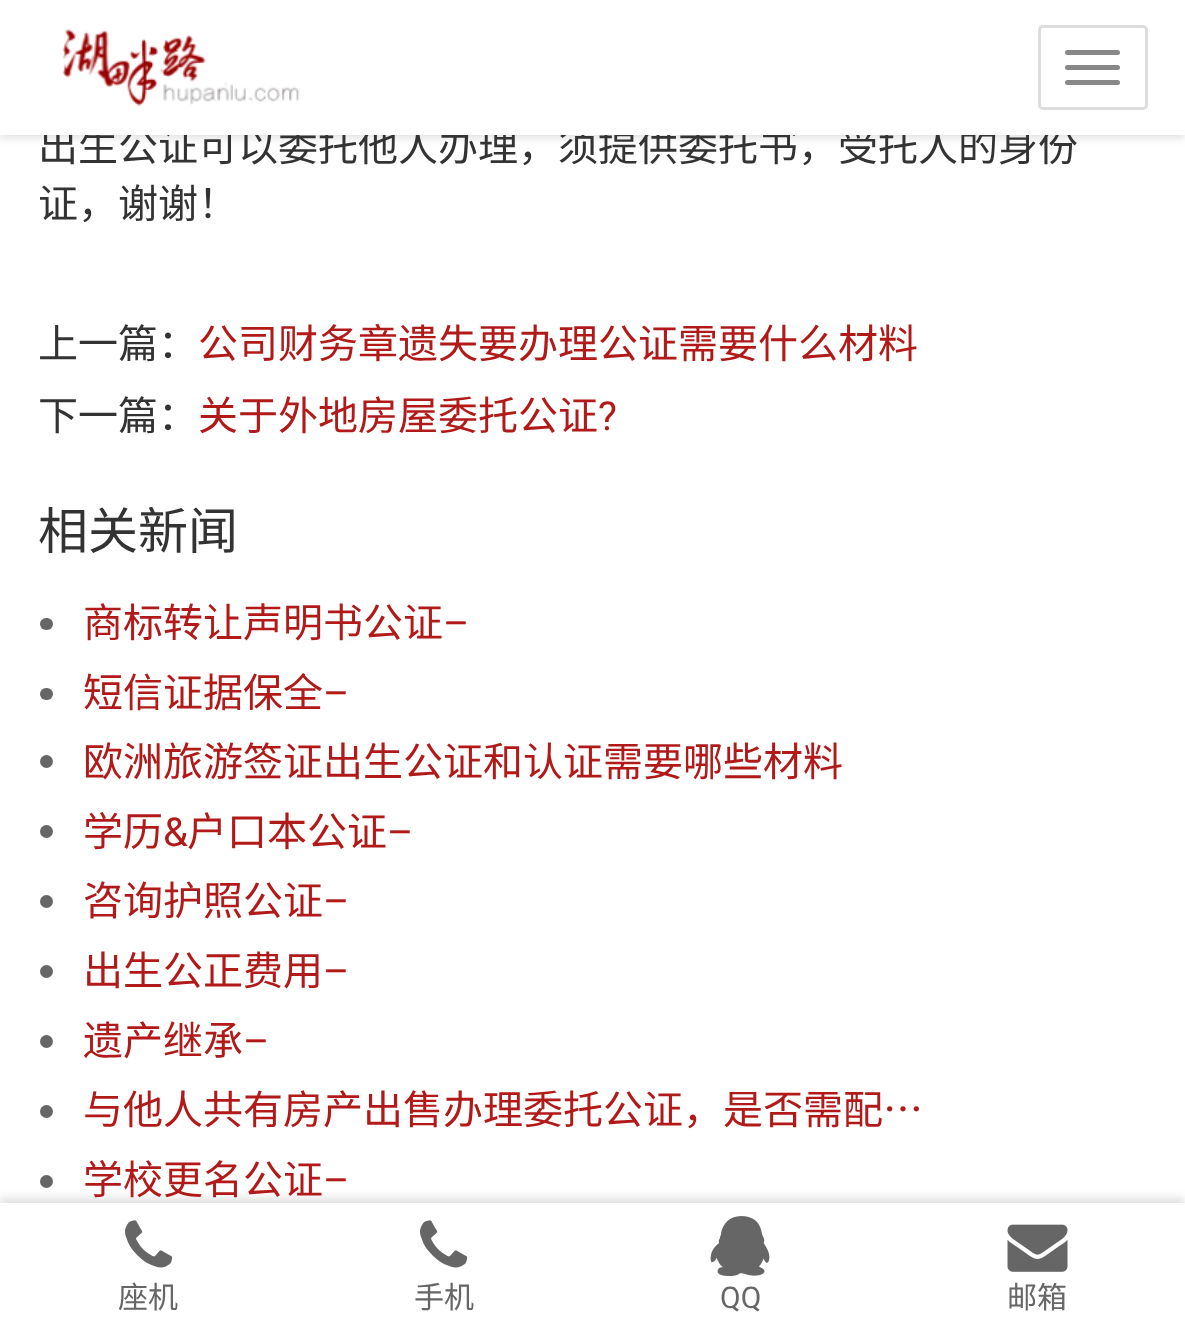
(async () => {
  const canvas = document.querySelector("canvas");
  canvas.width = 1185;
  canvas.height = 1327;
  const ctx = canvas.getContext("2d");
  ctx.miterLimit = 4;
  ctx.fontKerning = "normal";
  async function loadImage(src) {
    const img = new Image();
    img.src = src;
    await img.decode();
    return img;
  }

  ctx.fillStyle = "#ffffff";
  ctx.fillRect(0, 0, 1185, 1327);
  ctx.fillStyle = "rgba(100, 100, 100, 0.2)";
  ctx.filter = "blur(4px)";
  ctx.beginPath();
  ctx.rect(0, 3, 1185, 135);
  ctx.fill();
  ctx.filter = "none";
  ctx.fillStyle = "#666666";
  ctx.beginPath();
  ctx.roundRect(40, 618, 13, 12, 6);
  ctx.fill();
  ctx.beginPath();
  ctx.roundRect(40, 688, 13, 12, 6);
  ctx.fill();
  ctx.beginPath();
  ctx.arc(46.5, 761.5, 6.5, 0, Math.PI * 2);
  ctx.fill();
  ctx.beginPath();
  ctx.arc(46.5, 831.5, 6.5, 0, Math.PI * 2);
  ctx.fill();
  ctx.beginPath();
  ctx.arc(46.5, 901.5, 6.5, 0, Math.PI * 2);
  ctx.fill();
  ctx.beginPath();
  ctx.arc(46.5, 971.5, 6.5, 0, Math.PI * 2);
  ctx.fill();
  ctx.beginPath();
  ctx.arc(46.5, 1041.5, 6.5, 0, Math.PI * 2);
  ctx.fill();
  ctx.beginPath();
  ctx.arc(46.5, 1111.5, 6.5, 0, Math.PI * 2);
  ctx.fill();
  ctx.beginPath();
  ctx.arc(46.5, 1181.5, 6.5, 0, Math.PI * 2);
  ctx.fill();
  ctx.fillStyle = "rgba(0, 0, 0, 0.12)";
  ctx.filter = "blur(4px)";
  ctx.beginPath();
  ctx.rect(0, 1198, 1185, 125);
  ctx.fill();
  ctx.filter = "none";
  ctx.fillStyle = "#ffffff";
  ctx.fillRect(0, 1203, 1185, 124);
  ctx.drawImage(await loadImage("img/2.png"), 125, 1220, 48, 48);
  ctx.drawImage(await loadImage("img/2.png"), 420, 1220, 48, 48);
  ctx.drawImage(await loadImage("img/3.png"), 710, 1216, 60, 61);
  ctx.drawImage(await loadImage("img/4.png"), 1007, 1224, 61, 48);
  ctx.font = "40px Noto Sans CJK SC";
  ctx.fillStyle = "#333333";
  ctx.fillText("出生公证可以委托他人办理，须提供委托书，受托人的身份", 38, 161);
  ctx.fillStyle = "#ffffff";
  ctx.fillRect(0, 0, 1185, 135);
  ctx.beginPath();
  ctx.roundRect(1039.5, 26.5, 107, 82, 3.5);
  ctx.strokeStyle = "#dddddd";
  ctx.lineWidth = 3;
  ctx.stroke();
  ctx.fillStyle = "#888888";
  ctx.beginPath();
  ctx.roundRect(1065, 80, 55, 5, 2.5);
  ctx.fill();
  ctx.beginPath();
  ctx.roundRect(1065, 65, 55, 5, 2.5);
  ctx.fill();
  ctx.beginPath();
  ctx.roundRect(1065, 50, 55, 5, 2.5);
  ctx.fill();
  ctx.drawImage(await loadImage("img/1.png"), 62, 28, 238, 78);
  ctx.fillStyle = "#333333";
  ctx.fillText("证，谢谢！", 38, 218);
  ctx.fillText("上一篇：", 38, 358);
  ctx.fillStyle = "#b21a1a";
  ctx.fillText("公司财务章遗失要办理公证需要什么材料", 198, 358);
  ctx.fillStyle = "#333333";
  ctx.fillText("下一篇：", 38, 430);
  ctx.fillStyle = "#b21a1a";
  ctx.fillText("关于外地房屋委托公证", 198, 430);
  ctx.font = "40px Roboto";
  ctx.fillText("?", 598, 430);
  ctx.font = "50px Noto Sans CJK SC";
  ctx.fillStyle = "#333333";
  ctx.fillText("相关新闻", 38, 549);
  ctx.font = "40px Noto Sans CJK SC";
  ctx.fillStyle = "#b21a1a";
  ctx.fillText("商标转让声明书公证", 83, 637);
  ctx.font = "40px Roboto";
  ctx.fillText("–", 443, 637);
  ctx.font = "40px Noto Sans CJK SC";
  ctx.fillText("短信证据保全", 83, 707);
  ctx.font = "40px Roboto";
  ctx.fillText("–", 323, 707);
  ctx.font = "40px Noto Sans CJK SC";
  ctx.fillText("欧洲旅游签证出生公证和认证需要哪些材料", 83, 776);
  ctx.fillText("学历", 83, 846);
  ctx.font = "40px Roboto";
  ctx.fillText("&", 163, 846);
  ctx.font = "40px Noto Sans CJK SC";
  ctx.fillText("户口本公证", 187, 846);
  ctx.font = "40px Roboto";
  ctx.fillText("–", 387, 846);
  ctx.font = "40px Noto Sans CJK SC";
  ctx.fillText("咨询护照公证", 83, 915);
  ctx.font = "40px Roboto";
  ctx.fillText("–", 323, 915);
  ctx.font = "40px Noto Sans CJK SC";
  ctx.fillText("出生公正费用", 83, 985);
  ctx.font = "40px Roboto";
  ctx.fillText("–", 323, 985);
  ctx.font = "40px Noto Sans CJK SC";
  ctx.fillText("遗产继承", 83, 1055);
  ctx.font = "40px Roboto";
  ctx.fillText("–", 243, 1055);
  ctx.font = "40px Noto Sans CJK SC";
  ctx.fillText("与他人共有房产出售办理委托公证，是否需配…", 83, 1124);
  ctx.fillText("学校更名公证", 83, 1194);
  ctx.font = "40px Roboto";
  ctx.fillText("–", 323, 1194);
  ctx.font = "30px Noto Sans CJK SC";
  ctx.fillStyle = "#666666";
  ctx.fillText("座机", 118, 1308);
  ctx.fillText("手机", 414, 1308);
  ctx.font = "30px Roboto";
  ctx.fillText("QQ", 720, 1308);
  ctx.font = "30px Noto Sans CJK SC";
  ctx.fillText("邮箱", 1007, 1308);
})();
